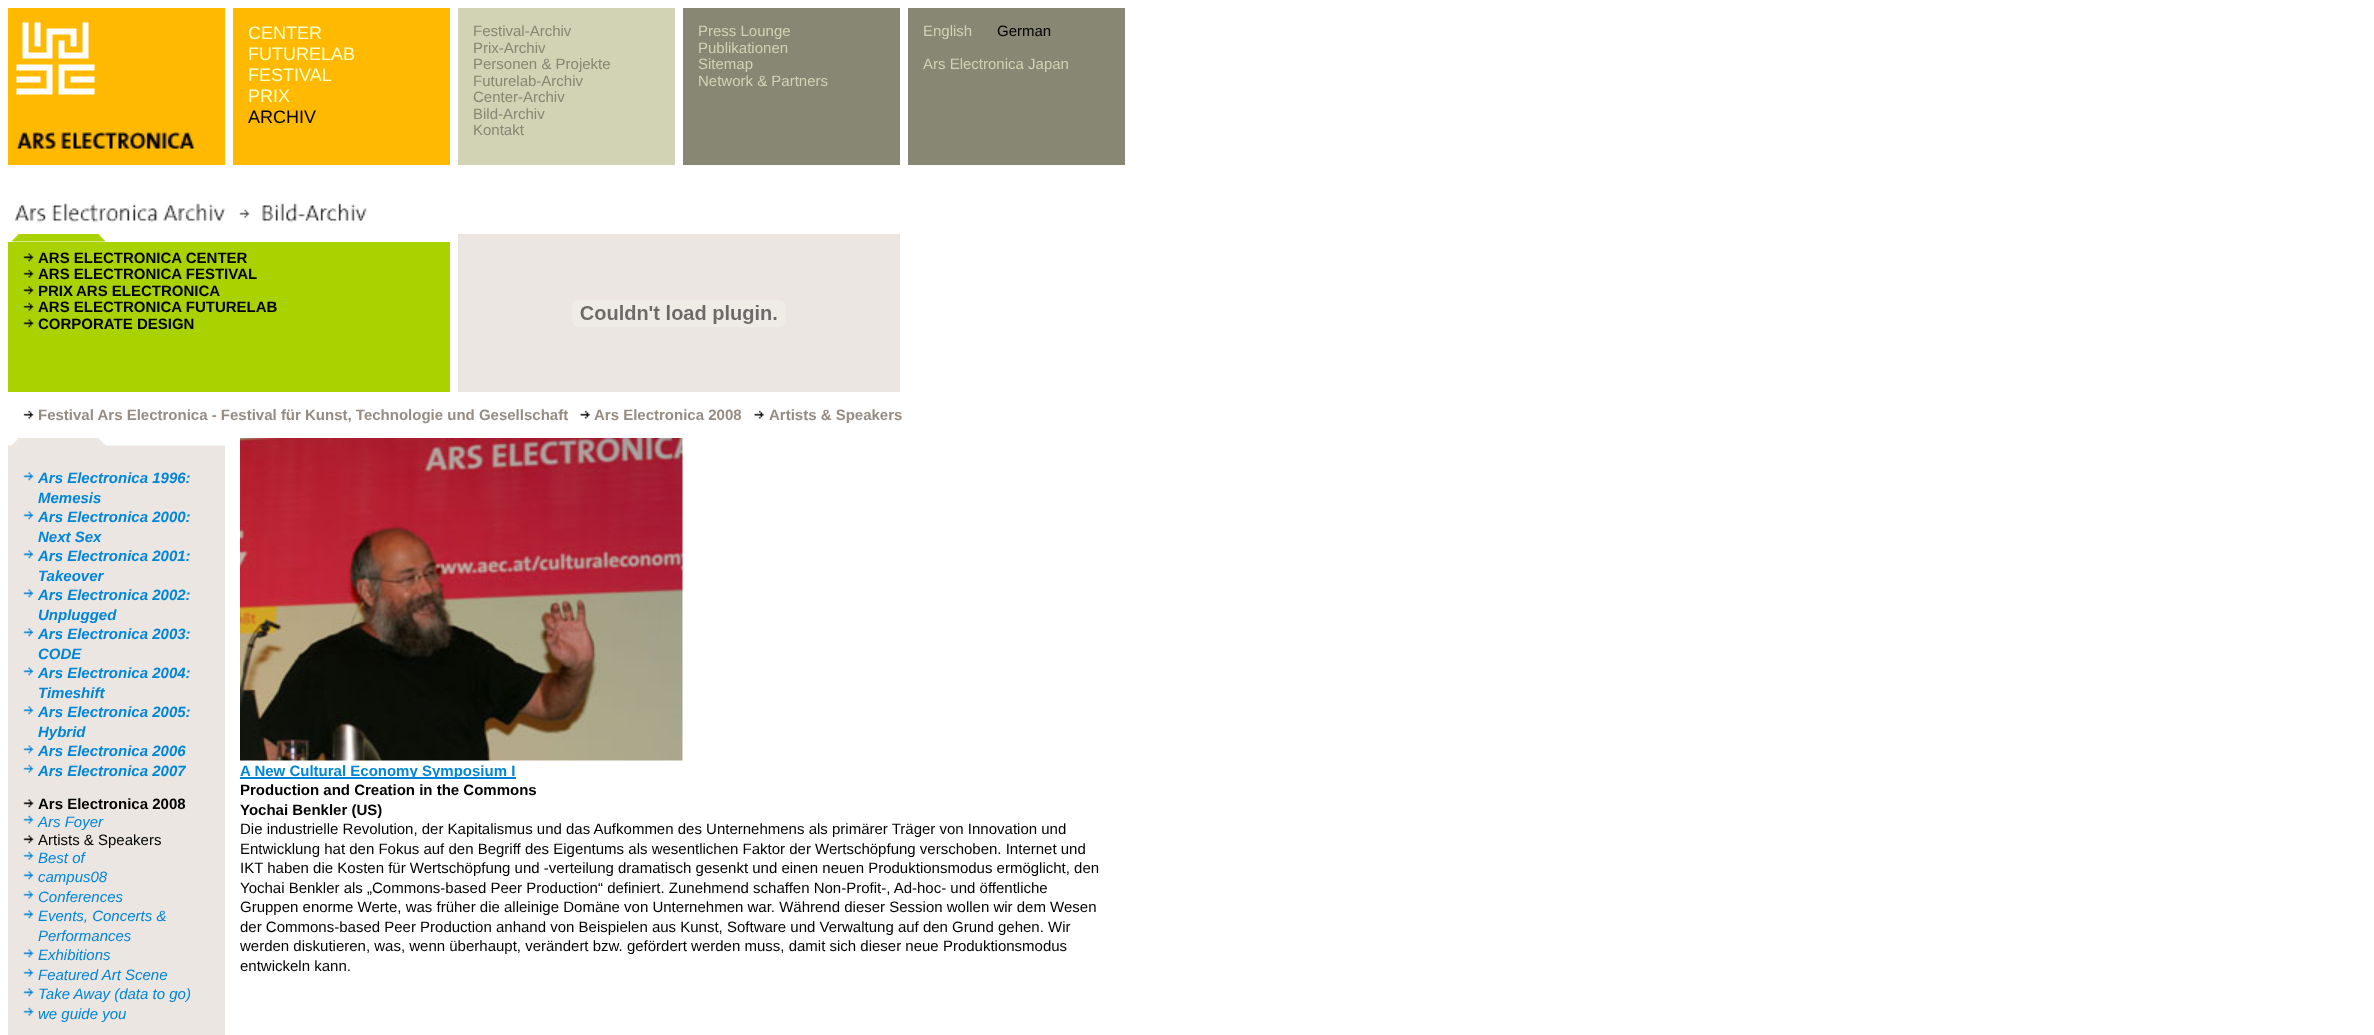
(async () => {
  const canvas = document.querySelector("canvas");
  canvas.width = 2374;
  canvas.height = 1035;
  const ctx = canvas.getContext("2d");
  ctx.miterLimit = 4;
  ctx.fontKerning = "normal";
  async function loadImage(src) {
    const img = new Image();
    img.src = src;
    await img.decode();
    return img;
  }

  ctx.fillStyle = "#ffffff";
  ctx.fillRect(0, 0, 2374, 1035);
  ctx.fillStyle = "#ffb900";
  ctx.fillRect(8, 8, 217, 157);
  ctx.drawImage(await loadImage("img/1.png"), 16, 22, 79, 73);
  ctx.drawImage(await loadImage("img/2.png"), 16, 132, 179, 17);
  for (const [x, y, w, h, color] of [
    [233, 8, 217, 157, "#ffb900"],
    [458, 8, 217, 157, "#d2d2b4"],
    [683, 8, 217, 157, "#878773"],
    [908, 8, 217, 157, "#878773"],
  ]) {
    ctx.fillStyle = color;
    ctx.fillRect(x, y, w, h);
  }
  ctx.drawImage(await loadImage("img/3.png"), 14, 203, 353, 20);
  ctx.drawImage(await loadImage("img/4.png"), 11, 234, 95, 8);
  ctx.fillStyle = "#aad200";
  ctx.fillRect(8, 242, 442, 150);
  ctx.drawImage(await loadImage("img/5.png"), 23, 253, 11, 9);
  ctx.drawImage(await loadImage("img/6.png"), 23, 269, 11, 9);
  ctx.drawImage(await loadImage("img/5.png"), 23, 286, 11, 9);
  ctx.drawImage(await loadImage("img/6.png"), 23, 302, 11, 9);
  ctx.drawImage(await loadImage("img/5.png"), 23, 319, 11, 9);
  ctx.fillStyle = "#ebe6e1";
  ctx.fillRect(458, 234, 442, 158);
  ctx.drawImage(await loadImage("img/7.png"), 572, 300, 214, 27);
  ctx.drawImage(await loadImage("img/8.png"), 23, 410, 11, 9);
  ctx.drawImage(await loadImage("img/9.png"), 580, 410, 10, 9);
  ctx.drawImage(await loadImage("img/9.png"), 754, 410, 10, 9);
  ctx.fillRect(8, 445, 217, 590);
  ctx.drawImage(await loadImage("img/10.png"), 8, 438, 217, 8);
  ctx.drawImage(await loadImage("img/11.png"), 23, 472, 11, 9);
  ctx.drawImage(await loadImage("img/11.png"), 23, 511, 11, 9);
  ctx.drawImage(await loadImage("img/11.png"), 23, 550, 11, 9);
  ctx.drawImage(await loadImage("img/11.png"), 23, 589, 11, 9);
  ctx.drawImage(await loadImage("img/11.png"), 23, 628, 11, 9);
  ctx.drawImage(await loadImage("img/11.png"), 23, 667, 11, 9);
  ctx.drawImage(await loadImage("img/11.png"), 23, 706, 11, 9);
  ctx.drawImage(await loadImage("img/11.png"), 23, 745, 11, 9);
  ctx.drawImage(await loadImage("img/12.png"), 23, 764, 11, 9);
  ctx.drawImage(await loadImage("img/13.png"), 23, 799, 11, 9);
  ctx.drawImage(await loadImage("img/12.png"), 23, 815, 11, 9);
  ctx.drawImage(await loadImage("img/13.png"), 23, 835, 11, 9);
  ctx.drawImage(await loadImage("img/12.png"), 23, 851, 11, 9);
  ctx.drawImage(await loadImage("img/11.png"), 23, 871, 11, 9);
  ctx.drawImage(await loadImage("img/12.png"), 23, 890, 11, 9);
  ctx.drawImage(await loadImage("img/11.png"), 23, 910, 11, 9);
  ctx.drawImage(await loadImage("img/11.png"), 23, 949, 11, 9);
  ctx.drawImage(await loadImage("img/12.png"), 23, 968, 11, 9);
  ctx.drawImage(await loadImage("img/11.png"), 23, 988, 11, 9);
  ctx.drawImage(await loadImage("img/12.png"), 23, 1007, 11, 9);
  ctx.drawImage(await loadImage("img/14.png"), 240, 438, 443, 323);
  ctx.fillStyle = "#0083d7";
  ctx.fillRect(240, 777, 276, 2);
  ctx.font = "18px Liberation Sans";
  ctx.fillStyle = "#ffffcc";
  for (const [text, x, y] of [
    ["CENTER", 248, 39],
    ["FUTURELAB", 248, 60],
    ["FESTIVAL", 248, 81],
    ["PRIX", 248, 102],
  ]) {
    ctx.fillText(text, x, y);
  }
  ctx.fillStyle = "#000000";
  ctx.fillText("ARCHIV", 248, 123);
  ctx.font = "15px Liberation Sans";
  ctx.fillStyle = "#878773";
  for (const [text, x, y] of [
    ["Festival-Archiv", 473, 36],
    ["Prix-Archiv", 473, 53],
    ["Personen & Projekte", 473, 69],
    ["Futurelab-Archiv", 473, 86],
    ["Center-Archiv", 473, 102],
    ["Bild-Archiv", 473, 119],
    ["Kontakt", 473, 135],
  ]) {
    ctx.fillText(text, x, y);
  }
  ctx.fillStyle = "#d2d2b4";
  for (const [text, x, y] of [
    ["Press Lounge", 698, 36],
    ["Publikationen", 698, 53],
    ["Sitemap", 698, 69],
    ["Network & Partners", 698, 86],
    ["English", 923, 36],
  ]) {
    ctx.fillText(text, x, y);
  }
  ctx.fillStyle = "#000000";
  ctx.fillText("German", 997, 36);
  ctx.fillStyle = "#d2d2b4";
  ctx.fillText("Ars Electronica Japan", 923, 69);
  ctx.font = "bold 15px Liberation Sans";
  ctx.fillStyle = "#000000";
  for (const [text, x, y] of [
    ["ARS ELECTRONICA CENTER", 38, 263],
    ["ARS ELECTRONICA FESTIVAL", 38, 279],
    ["PRIX", 38, 296],
    ["ARS ELECTRONICA", 76, 296],
    ["ARS ELECTRONICA FUTURELAB", 38, 312],
    ["CORPORATE DESIGN", 38, 329],
  ]) {
    ctx.fillText(text, x, y);
  }
  ctx.fillStyle = "#968c82";
  for (const [text, x, y] of [
    ["Festival Ars Electronica - Festival für Kunst, Technologie und Gesellschaft", 38, 420],
    ["Ars Electronica 2008", 594, 420],
    ["Artists & Speakers", 769, 420],
  ]) {
    ctx.fillText(text, x, y);
  }
  ctx.font = "italic bold 15px Liberation Sans";
  ctx.fillStyle = "#0085d7";
  for (const [text, x, y] of [
    ["Ars Electronica 1996:", 38, 483],
    ["Memesis", 38, 503],
    ["Ars Electronica 2000:", 38, 522],
    ["Next Sex", 38, 542],
    ["Ars Electronica 2001:", 38, 561],
    ["Takeover", 38, 581],
    ["Ars Electronica 2002:", 38, 600],
    ["Unplugged", 38, 620],
    ["Ars Electronica 2003:", 38, 639],
    ["CODE", 38, 659],
    ["Ars Electronica 2004:", 38, 678],
    ["Timeshift", 38, 698],
    ["Ars Electronica 2005:", 38, 717],
    ["Hybrid", 38, 737],
    ["Ars Electronica 2006", 38, 756],
    ["Ars Electronica 2007", 38, 776],
  ]) {
    ctx.fillText(text, x, y);
  }
  ctx.font = "bold 15px Liberation Sans";
  ctx.fillStyle = "#000000";
  ctx.fillText("Ars Electronica 2008", 38, 809);
  ctx.font = "italic 15px Liberation Sans";
  ctx.fillStyle = "#0085d7";
  ctx.fillText("Ars Foyer", 38, 827);
  ctx.font = "15px Liberation Sans";
  ctx.fillStyle = "#000000";
  ctx.fillText("Artists & Speakers", 38, 845);
  ctx.font = "italic 15px Liberation Sans";
  ctx.fillStyle = "#0085d7";
  for (const [text, x, y] of [
    ["Best of", 38, 863],
    ["campus08", 38, 882],
    ["Conferences", 38, 902],
    ["Events, Concerts &", 38, 921],
    ["Performances", 38, 941],
    ["Exhibitions", 38, 960],
    ["Featured Art Scene", 38, 980],
    ["Take Away (data to go)", 38, 999],
    ["we guide you", 38, 1019],
  ]) {
    ctx.fillText(text, x, y);
  }
  ctx.font = "bold 15px Liberation Sans";
  ctx.fillText("A New Cultural Economy Symposium I", 240, 776);
  ctx.fillStyle = "#000000";
  ctx.fillText("Production and Creation in the Commons", 240, 795);
  ctx.fillText("Yochai Benkler (US)", 240, 815);
  ctx.font = "15px Liberation Sans";
  for (const [text, x, y] of [
    ["Die industrielle Revolution, der Kapitalismus und das Aufkommen des Unternehmens als primärer Träger von Innovation und", 240, 834],
    ["Entwicklung hat den Fokus auf den Begriff des Eigentums als wesentlichen Faktor der Wertschöpfung verschoben. Internet und", 240, 854],
    ["IKT haben die Kosten für Wertschöpfung und -verteilung dramatisch gesenkt und einen neuen Produktionsmodus ermöglicht, den", 240, 873],
    ["Yochai Benkler als „Commons-based Peer Production“ definiert. Zunehmend schaffen Non-Profit-, Ad-hoc- und öffentliche", 240, 893],
    ["Gruppen enorme Werte, was früher die alleinige Domäne von Unternehmen war. Während dieser Session wollen wir dem Wesen", 240, 912],
    ["der Commons-based Peer Production anhand von Beispielen aus Kunst, Software und Verwaltung auf den Grund gehen. Wir", 240, 932],
    ["werden diskutieren, was, wenn überhaupt, verändert bzw. gefördert werden muss, damit sich dieser neue Produktionsmodus", 240, 951],
    ["entwickeln kann.", 240, 971],
  ]) {
    ctx.fillText(text, x, y);
  }
})();
